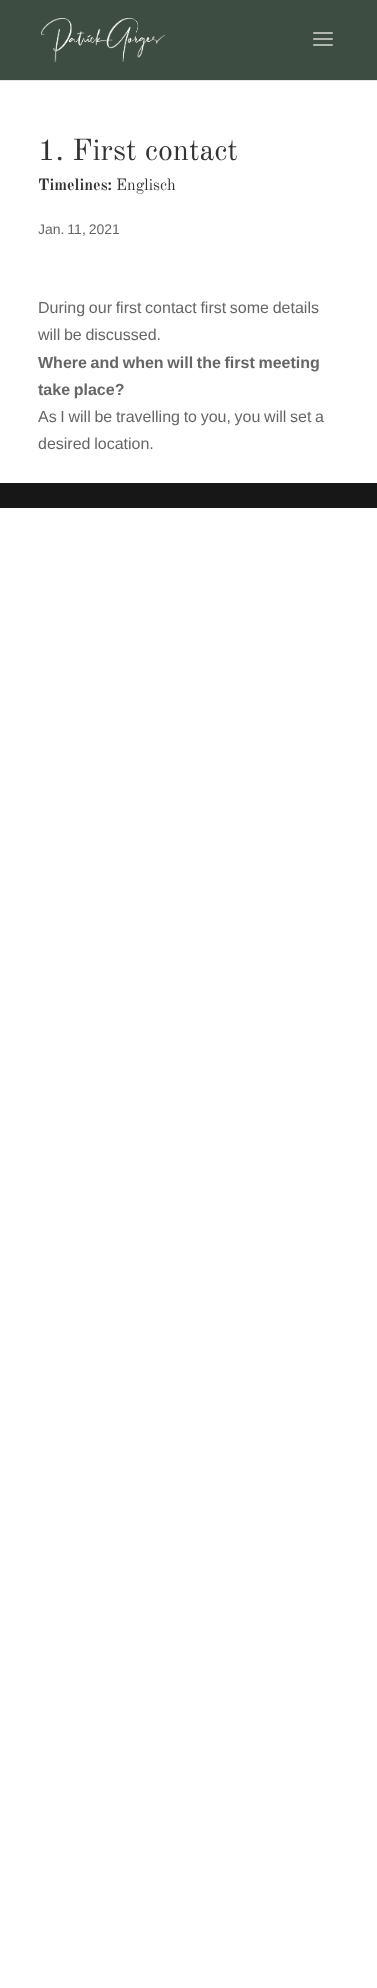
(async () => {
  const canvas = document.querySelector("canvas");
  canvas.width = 377;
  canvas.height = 1988;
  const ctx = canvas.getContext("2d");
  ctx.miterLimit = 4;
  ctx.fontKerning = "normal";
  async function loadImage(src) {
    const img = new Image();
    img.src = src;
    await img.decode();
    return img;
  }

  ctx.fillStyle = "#ffffff";
  ctx.fillRect(0, 0, 377, 1988);
  ctx.fillStyle = "#e6e6e6";
  ctx.fillRect(0, 80, 377, 1);
  ctx.fillStyle = "#3d4d41";
  ctx.fillRect(0, 0, 377, 80);
  ctx.drawImage(await loadImage("img/1.png"), 41, 18, 124, 44);
  ctx.drawImage(await loadImage("img/2.png"), 313, 32, 20, 14);
  ctx.fillStyle = "#171717";
  ctx.fillRect(0, 483, 377, 25);
  ctx.font = "30px Old Standard TT";
  ctx.fillStyle = "#333333";
  ctx.fillText("1. First contact", 38, 160);
  ctx.font = "bold 16px Old Standard TT";
  ctx.fillText("Timelines:", 38, 190);
  ctx.font = "16px Old Standard TT";
  ctx.fillText("Englisch", 116, 190);
  ctx.wordSpacing = "-1px";
  ctx.font = "14px Liberation Sans";
  ctx.fillStyle = "#666666";
  ctx.fillText("Jan. 11, 2021", 38, 234);
  ctx.wordSpacing = "-0.75px";
  ctx.font = "16px Liberation Sans";
  ctx.fillText("During our first contact first some details", 38, 313);
  ctx.fillText("will be discussed.", 38, 340);
  ctx.font = "bold 16px Liberation Sans";
  ctx.fillText("Where and when will the first meeting", 38, 368);
  ctx.fillText("take place?", 38, 395);
  ctx.font = "16px Liberation Sans";
  ctx.fillText("As I will be travelling to you, you will set a", 38, 422);
  ctx.fillText("desired location.", 38, 449);
})();
